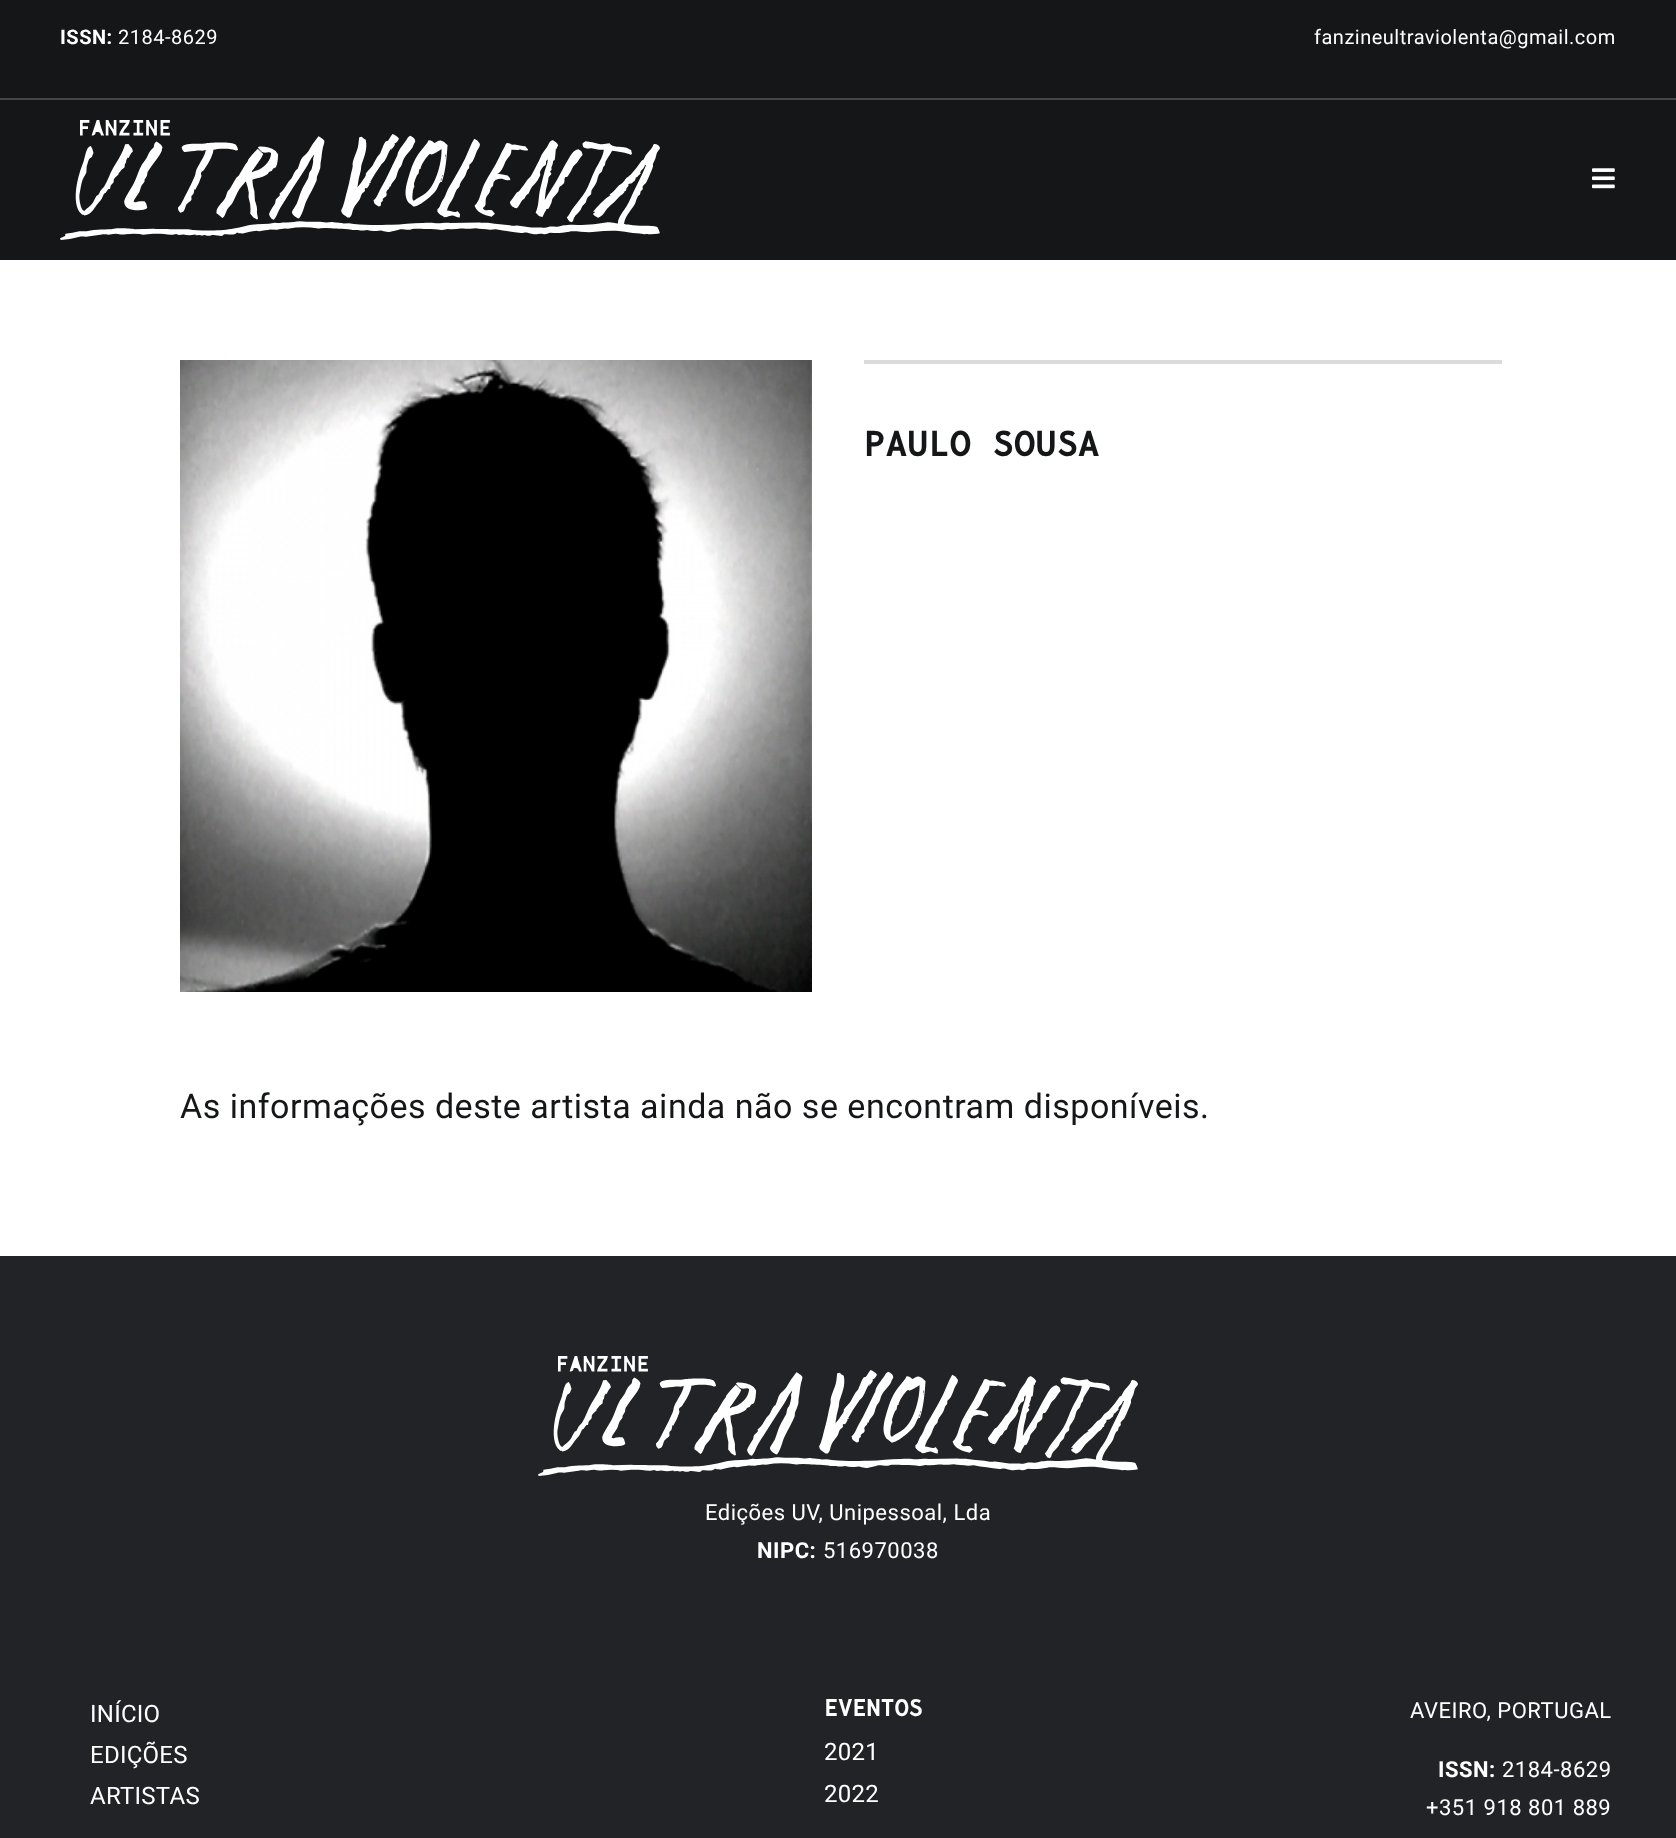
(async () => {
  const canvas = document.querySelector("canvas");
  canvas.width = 1676;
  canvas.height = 1838;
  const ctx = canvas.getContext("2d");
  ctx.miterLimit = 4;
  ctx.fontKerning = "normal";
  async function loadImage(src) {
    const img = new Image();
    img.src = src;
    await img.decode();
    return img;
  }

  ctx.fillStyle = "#ffffff";
  ctx.fillRect(0, 0, 1676, 1838);
  for (const [x, y, w, h, color] of [
    [0, 0, 1676, 98, "#141617"],
    [0, 98, 1676, 2, "#434549"],
    [0, 100, 1676, 160, "#141617"],
  ]) {
    ctx.fillStyle = color;
    ctx.fillRect(x, y, w, h);
  }
  ctx.drawImage(await loadImage("img/1.png"), 60, 120, 600, 120);
  ctx.drawImage(await loadImage("img/2.png"), 1592, 168, 23, 21);
  ctx.drawImage(await loadImage("img/3.png"), 180, 360, 632, 632);
  ctx.fillStyle = "#dbdbdb";
  ctx.fillRect(864, 360, 638, 4);
  ctx.fillStyle = "#212326";
  ctx.fillRect(0, 1256, 1676, 582);
  ctx.drawImage(await loadImage("img/4.png"), 538, 1356, 600, 120);
  ctx.letterSpacing = "0.5px";
  ctx.font = "bold 20px Roboto";
  ctx.fillStyle = "#ffffff";
  ctx.fillText("ISSN:", 60, 44);
  ctx.font = "20px Roboto";
  ctx.fillText("2184-8629", 118, 44);
  ctx.fillText("fanzineultraviolenta@gmail.com", 1314, 44);
  ctx.letterSpacing = "-0.5px";
  ctx.font = "600 36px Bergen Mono";
  ctx.fillStyle = "#141617";
  ctx.fillText("PAULO SOUSA", 864, 456);
  ctx.letterSpacing = "0.5px";
  ctx.font = "34px Roboto";
  ctx.fillText("As informações deste artista ainda não se encontram disponíveis.", 180, 1118);
  ctx.font = "22px Roboto";
  ctx.fillStyle = "#ffffff";
  ctx.fillText("Edições UV, Unipessoal, Lda", 705, 1520);
  ctx.font = "bold 22px Roboto";
  ctx.fillText("NIPC:", 757, 1558);
  ctx.font = "22px Roboto";
  ctx.fillText("516970038", 823, 1558);
  ctx.letterSpacing = "0.25px";
  ctx.font = "24px Roboto";
  for (const [text, x, y] of [
    ["INÍCIO", 90, 1722],
    ["EDIÇÕES", 90, 1763],
    ["ARTISTAS", 90, 1804],
  ]) {
    ctx.fillText(text, x, y);
  }
  ctx.letterSpacing = "-0.5px";
  ctx.font = "600 24px Bergen Mono";
  ctx.fillText("EVENTOS", 824, 1716);
  ctx.letterSpacing = "0.25px";
  ctx.font = "24px Roboto";
  ctx.fillText("2021", 824, 1760);
  ctx.fillText("2022", 824, 1802);
  ctx.letterSpacing = "0.5px";
  ctx.font = "22px Roboto";
  ctx.fillText("AVEIRO, PORTUGAL", 1410, 1718);
  ctx.font = "bold 22px Roboto";
  ctx.fillText("ISSN:", 1438, 1777);
  ctx.font = "22px Roboto";
  ctx.fillText("2184-8629", 1502, 1777);
  ctx.fillText("+351 918 801 889", 1426, 1815);
})();
